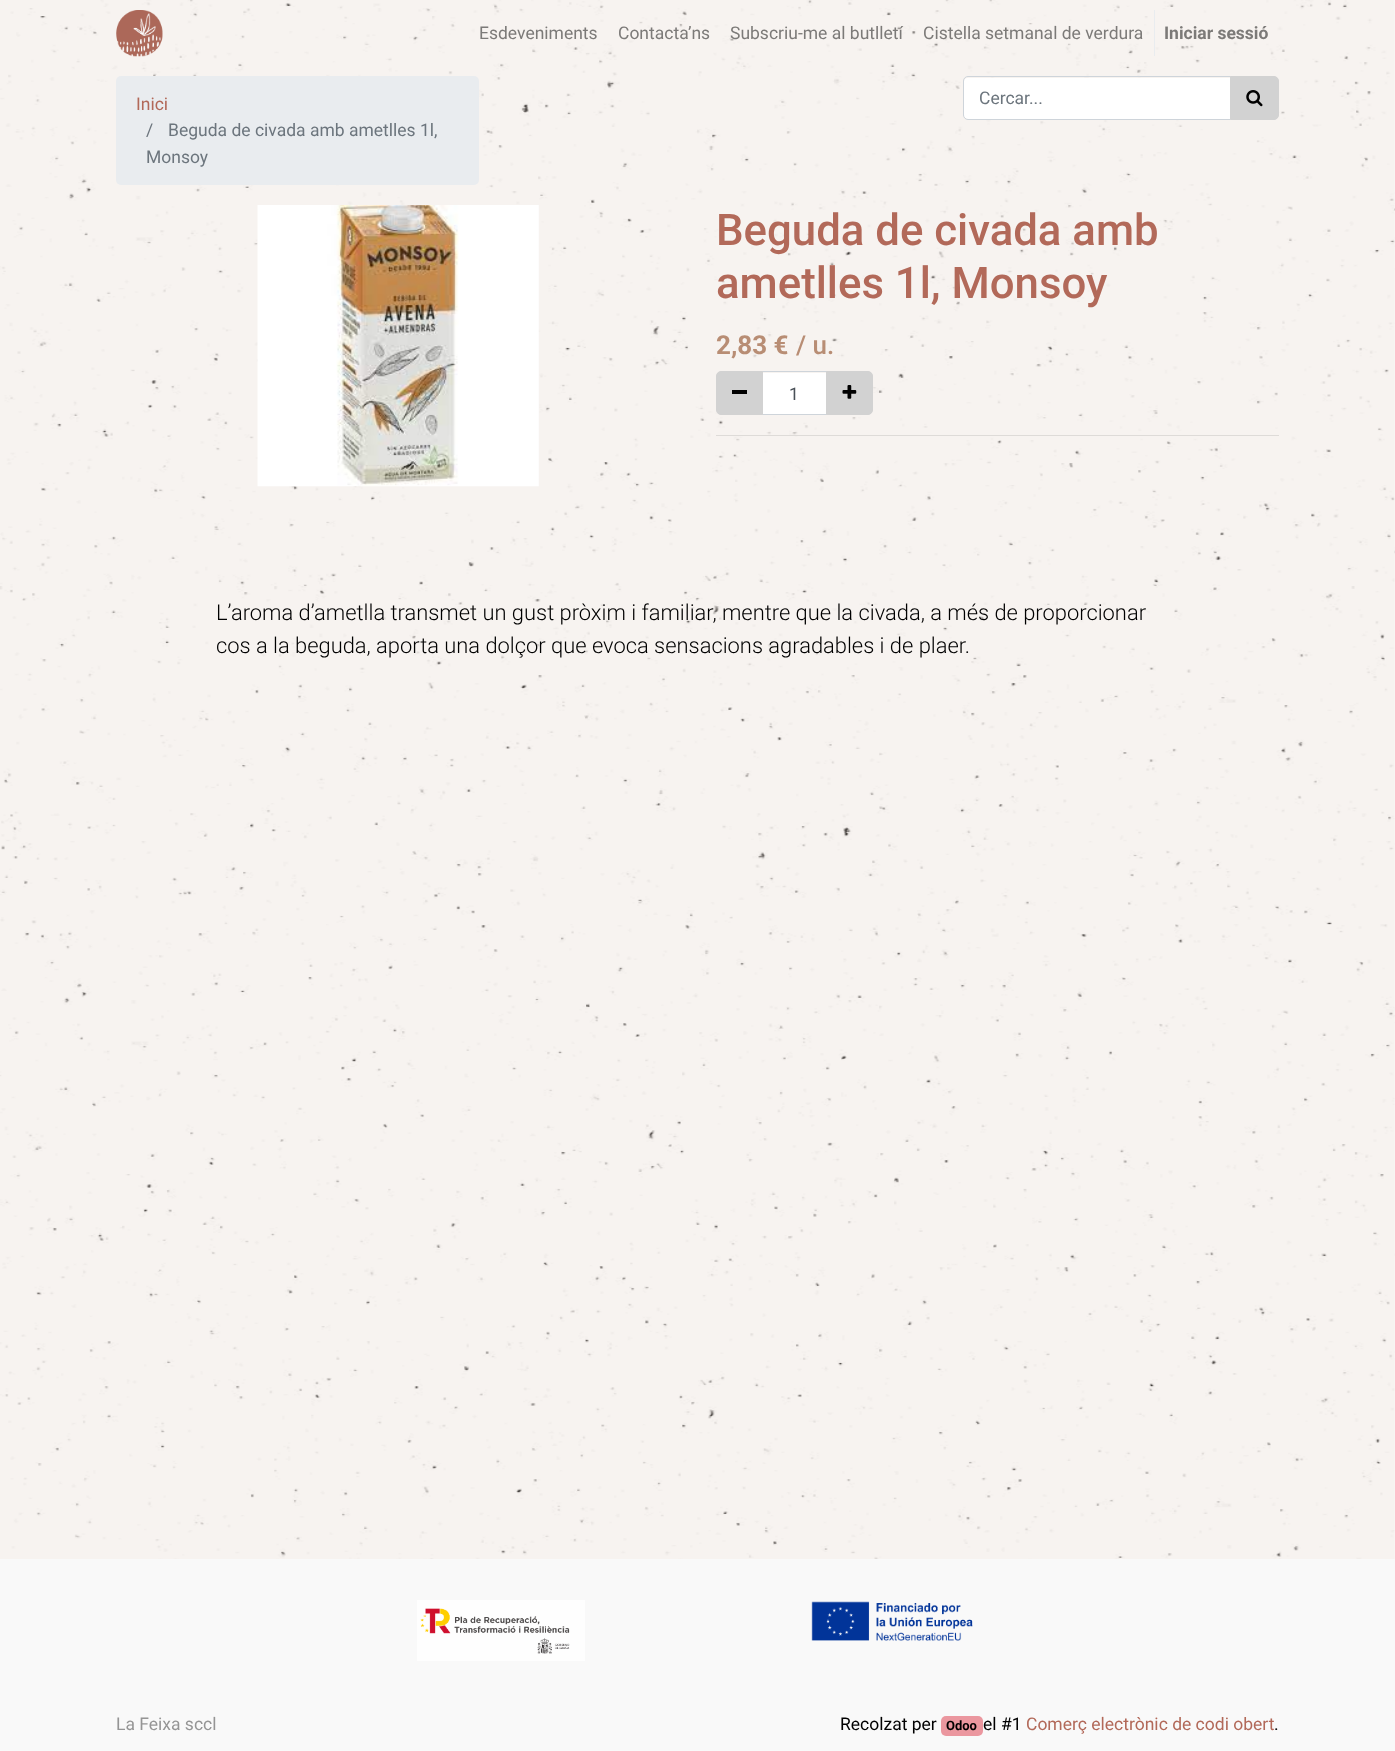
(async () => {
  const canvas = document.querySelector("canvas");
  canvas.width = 1395;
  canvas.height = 1751;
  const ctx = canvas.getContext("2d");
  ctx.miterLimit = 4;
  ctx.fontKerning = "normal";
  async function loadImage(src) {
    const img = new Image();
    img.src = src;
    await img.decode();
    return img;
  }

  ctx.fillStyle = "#ffffff";
  ctx.fillRect(0, 0, 1395, 1751);
  ctx.drawImage(await loadImage("img/1.png"), 0, 0, 1395, 1559);
  ctx.drawImage(await loadImage("img/2.png"), 116, 10, 47, 47);
  ctx.fillStyle = "#e9ecef";
  ctx.fillRect(1154, 10, 1, 46);
  ctx.beginPath();
  ctx.roundRect(116, 76, 363, 109, 5);
  ctx.fill();
  ctx.fillStyle = "#ffffff";
  ctx.beginPath();
  ctx.roundRect(964, 78, 266, 41, [4, 0, 0, 4]);
  ctx.fill();
  ctx.beginPath();
  ctx.roundRect(963.5, 76.5, 267, 43, [4.5, 0, 0, 4.5]);
  ctx.strokeStyle = "#ced4da";
  ctx.stroke();
  ctx.fillStyle = "#d2d2d2";
  ctx.beginPath();
  ctx.roundRect(1230.5, 76.5, 48, 43, [0, 4.5, 4.5, 0]);
  ctx.fill();
  ctx.strokeStyle = "#d2d2d2";
  ctx.stroke();
  ctx.drawImage(await loadImage("img/3.png"), 1246, 90, 17, 17);
  ctx.drawImage(await loadImage("img/4.png"), 257, 205, 282, 282);
  ctx.fillStyle = "#ffffff";
  ctx.fillRect(763, 373, 63, 41);
  ctx.strokeStyle = "#ced4da";
  ctx.strokeRect(761.5, 371.5, 66, 43);
  ctx.fillStyle = "#d2d2d2";
  ctx.beginPath();
  ctx.roundRect(716.5, 371.5, 46, 43, [4.5, 0, 0, 4.5]);
  ctx.fill();
  ctx.strokeStyle = "#d2d2d2";
  ctx.stroke();
  ctx.fillStyle = "#000000";
  ctx.fillRect(732, 390, 15, 4);
  ctx.fillStyle = "#d2d2d2";
  ctx.beginPath();
  ctx.roundRect(826.5, 371.5, 46, 43, [0, 4.5, 4.5, 0]);
  ctx.fill();
  ctx.stroke();
  ctx.drawImage(await loadImage("img/5.png"), 842, 385, 15, 14);
  ctx.fillStyle = "#dedbd8";
  ctx.fillRect(716, 435, 563, 1);
  ctx.fillStyle = "#f9f9f9";
  ctx.fillRect(0, 1559, 1395, 192);
  ctx.drawImage(await loadImage("img/6.png"), 417, 1600, 168, 61);
  ctx.drawImage(await loadImage("img/7.png"), 811, 1601, 162, 40);
  ctx.fillStyle = "#eb979f";
  ctx.beginPath();
  ctx.roundRect(941, 1716, 42, 20, 5);
  ctx.fill();
  ctx.font = "17.5px Roboto";
  ctx.fillStyle = "#7c7a78";
  for (const [text, x, y] of [
    ["Esdeveniments", 479, 39],
    ["Contacta’ns", 618, 39],
    ["Subscriu-me al butlletí", 730, 39],
    ["Cistella setmanal de verdura", 923, 39],
  ]) {
    ctx.fillText(text, x, y);
  }
  ctx.font = "bold 17.5px Roboto";
  ctx.fillText("Iniciar sessió", 1164, 39);
  ctx.font = "17.5px Roboto";
  ctx.fillStyle = "#b26959";
  ctx.fillText("Inici", 136, 110);
  ctx.fillStyle = "#6c757d";
  for (const [text, x, y] of [
    ["/", 146, 136],
    ["Beguda de civada amb ametlles 1l,", 168, 136],
    ["Monsoy", 146, 163],
    ["Cercar...", 979, 104],
  ]) {
    ctx.fillText(text, x, y);
  }
  ctx.font = "500 43.75px Roboto";
  ctx.fillStyle = "#b26959";
  ctx.fillText("Beguda de civada amb", 716, 245);
  ctx.fillText("ametlles 1l, Monsoy", 716, 298);
  ctx.font = "bold 26px Roboto";
  ctx.fillStyle = "#b88d74";
  ctx.fillText("2,83 €", 716, 354);
  ctx.font = "500 26px Roboto";
  ctx.fillText("/ u.", 796, 354);
  ctx.font = "17.5px Roboto";
  ctx.fillStyle = "#495057";
  ctx.fillText("1", 789, 400);
  ctx.font = "300 21.9px Roboto";
  ctx.fillStyle = "#000000";
  ctx.fillText("L’aroma d’ametlla transmet un gust pròxim i familiar, mentre que la civada, a més de proporcionar", 216, 620);
  ctx.fillText("cos a la beguda, aporta una dolçor que evoca sensacions agradables i de plaer.", 216, 653);
  ctx.font = "17.5px Roboto";
  ctx.fillStyle = "#959595";
  ctx.fillText("La Feixa sccl", 116, 1730);
  ctx.fillStyle = "#000000";
  ctx.fillText("Recolzat per", 840, 1730);
  ctx.font = "bold 13px Roboto";
  ctx.fillText("Odoo", 946, 1730);
  ctx.font = "17.5px Roboto";
  ctx.fillText("el #1", 983, 1730);
  ctx.fillStyle = "#b26959";
  ctx.fillText("Comerç electrònic de codi obert", 1026, 1730);
  ctx.fillStyle = "#000000";
  ctx.fillText(".", 1274, 1730);
})();
